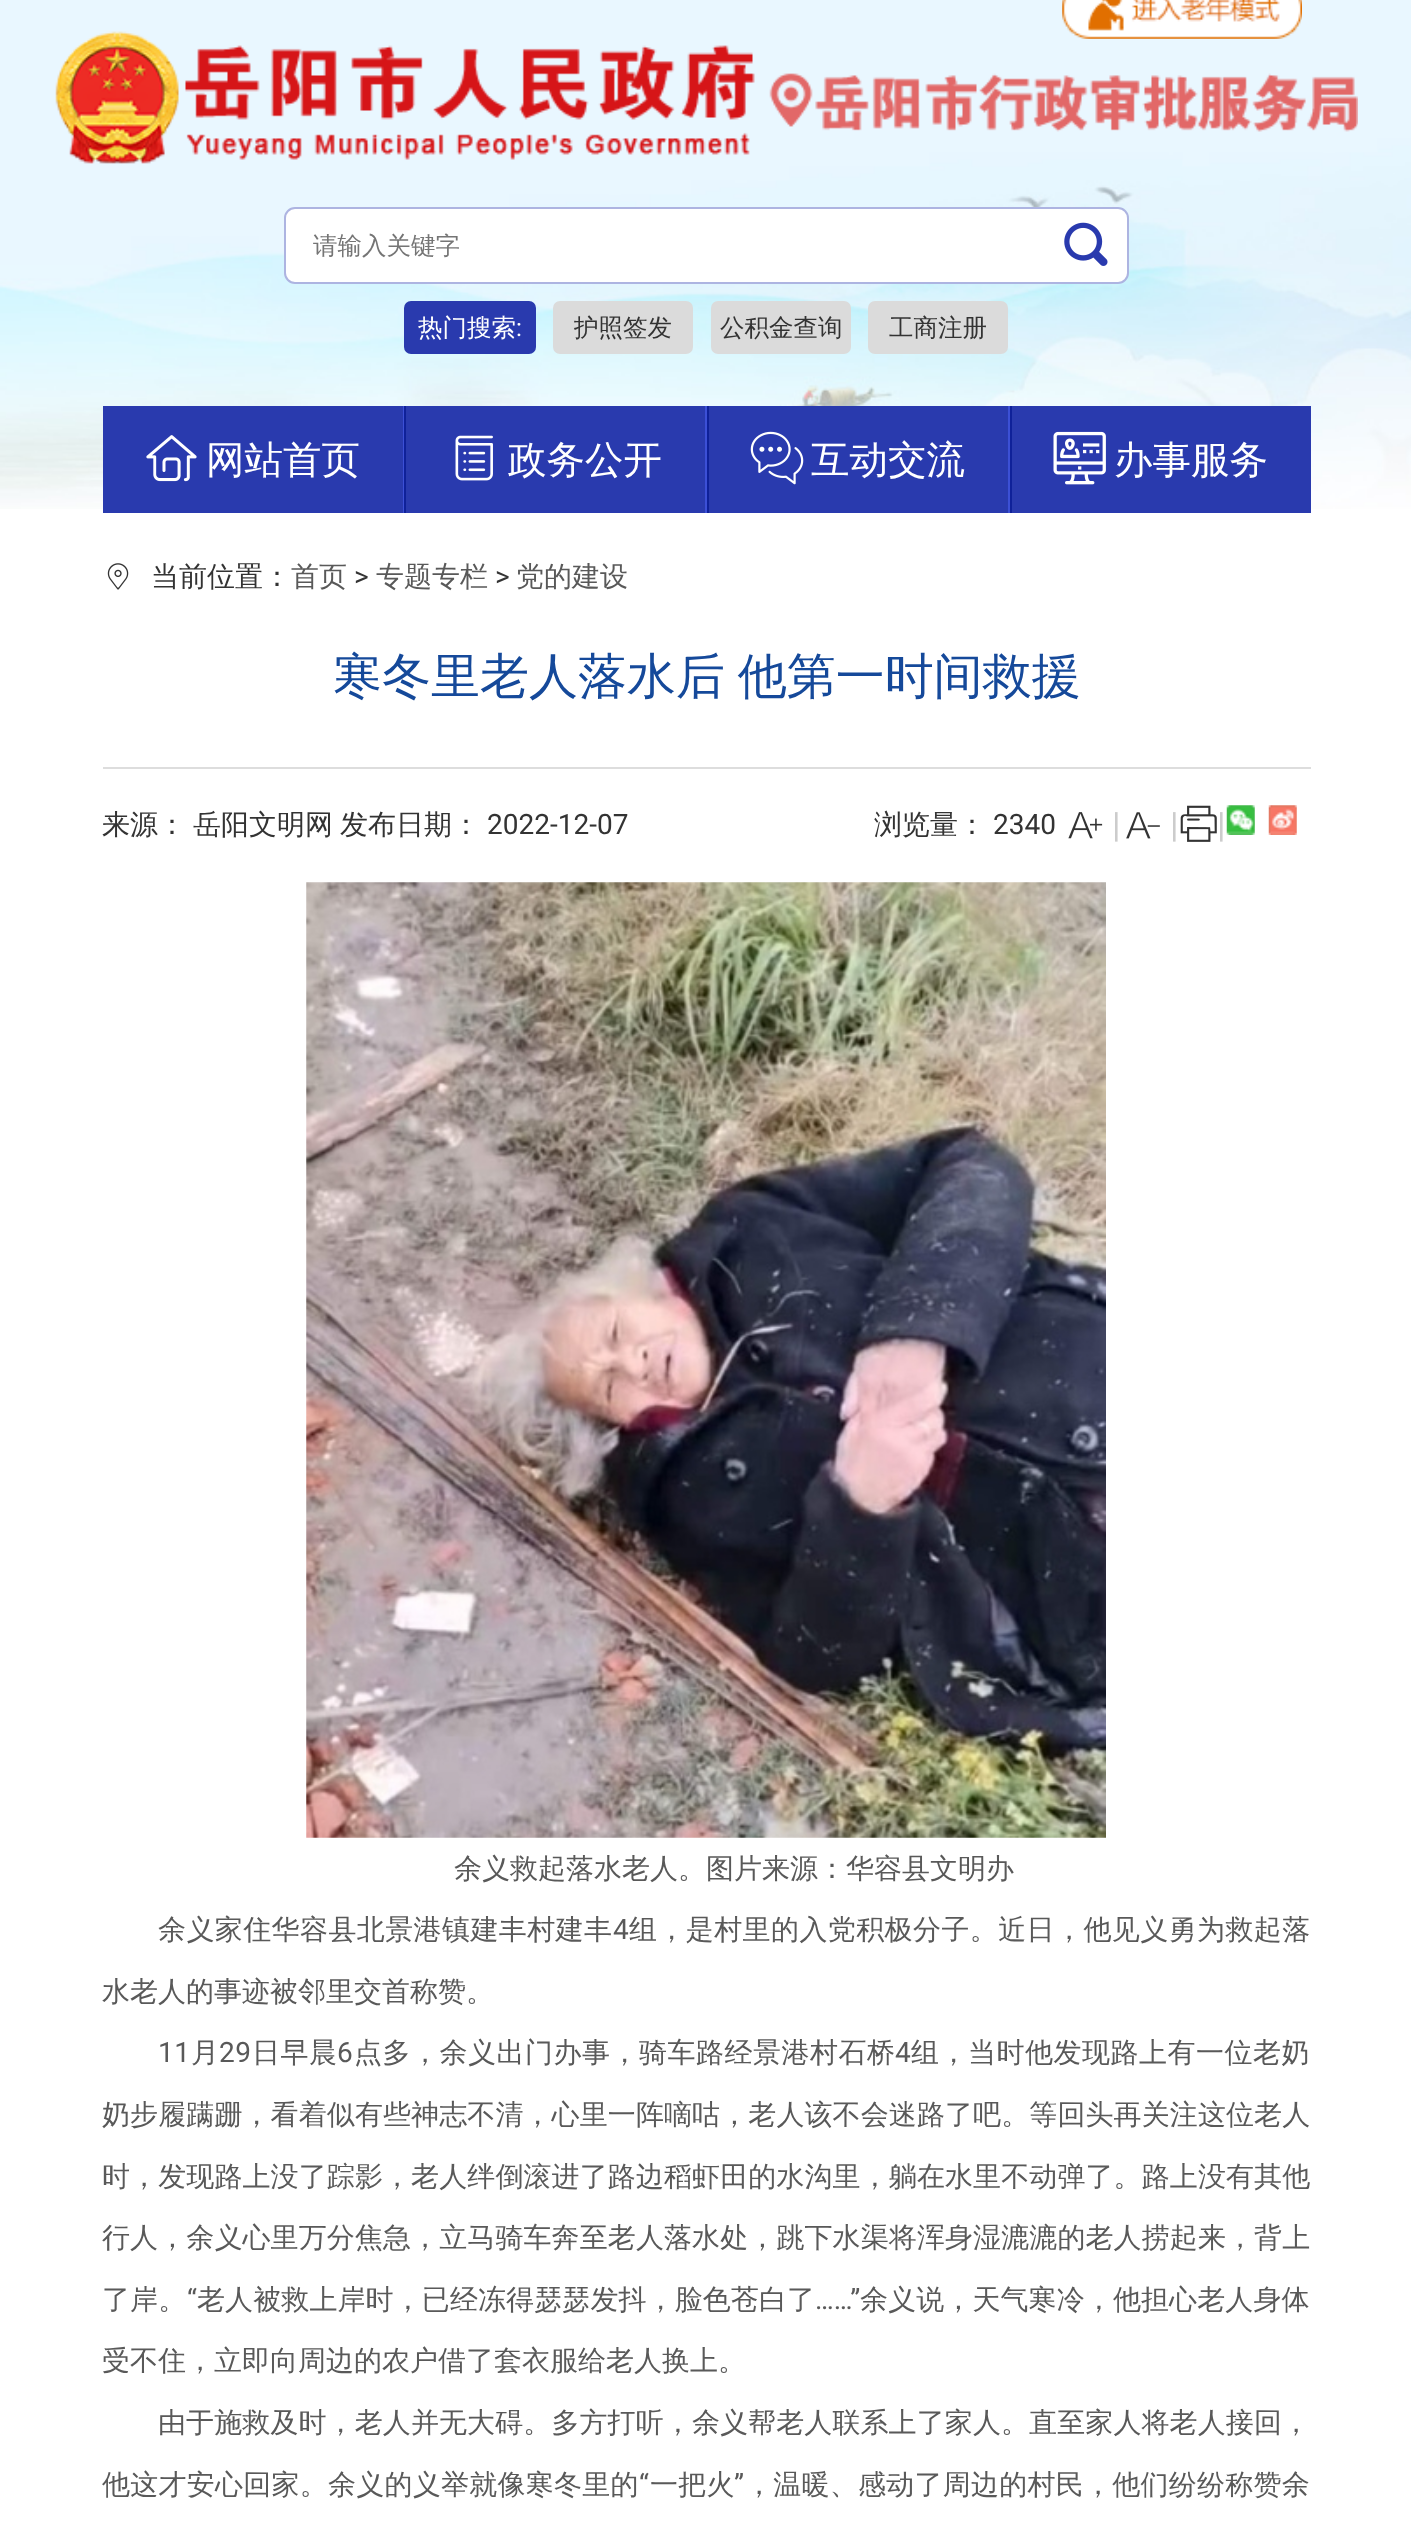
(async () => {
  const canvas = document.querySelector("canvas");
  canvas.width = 1411;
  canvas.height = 2521;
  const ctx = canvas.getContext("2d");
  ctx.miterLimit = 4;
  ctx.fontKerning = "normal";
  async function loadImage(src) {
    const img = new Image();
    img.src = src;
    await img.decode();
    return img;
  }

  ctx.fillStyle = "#ffffff";
  ctx.fillRect(0, 0, 1411, 2521);
  ctx.drawImage(await loadImage("img/1.png"), 0, 0, 1411, 509);
  ctx.drawImage(await loadImage("img/3.png"), 55, 31, 1303, 133);
  ctx.drawImage(await loadImage("img/2.png"), 1062, 0, 240, 39);
  ctx.beginPath();
  ctx.roundRect(285, 208, 843, 75, 10);
  ctx.fill();
  ctx.strokeStyle = "#adb4e1";
  ctx.lineWidth = 2;
  ctx.stroke();
  ctx.drawImage(await loadImage("img/4.png"), 1064, 222, 44, 44);
  ctx.fillStyle = "#293aae";
  ctx.beginPath();
  ctx.roundRect(404, 301, 132, 53, 7);
  ctx.fill();
  ctx.fillStyle = "#dbdbdb";
  ctx.beginPath();
  ctx.roundRect(553, 301, 140, 53, 7);
  ctx.fill();
  ctx.beginPath();
  ctx.roundRect(711, 301, 140, 53, 7);
  ctx.fill();
  ctx.beginPath();
  ctx.roundRect(868, 301, 140, 53, 7);
  ctx.fill();
  ctx.fillStyle = "#293aae";
  ctx.fillRect(103, 406, 1208, 107);
  ctx.fillStyle = "#3c50d6";
  ctx.fillRect(403, 406, 1, 107);
  ctx.drawImage(await loadImage("img/5.png"), 146, 435, 51, 47);
  ctx.fillRect(705, 406, 2, 107);
  ctx.fillStyle = "#0f2199";
  ctx.fillRect(404, 406, 2, 107);
  ctx.drawImage(await loadImage("img/6.png"), 455, 435, 38, 46);
  ctx.fillStyle = "#3c50d6";
  ctx.fillRect(1008, 406, 2, 107);
  ctx.fillStyle = "#0f2199";
  ctx.fillRect(707, 406, 2, 107);
  ctx.drawImage(await loadImage("img/7.png"), 750, 431, 54, 54);
  ctx.fillRect(1010, 406, 2, 107);
  ctx.drawImage(await loadImage("img/8.png"), 1053, 431, 53, 54);
  ctx.drawImage(await loadImage("img/9.png"), 107, 563, 22, 27);
  ctx.fillStyle = "#dddddd";
  ctx.fillRect(103, 767, 1208, 2);
  ctx.drawImage(await loadImage("img/10.png"), 1068, 812, 35, 27);
  ctx.drawImage(await loadImage("img/11.png"), 1126, 812, 34, 27);
  ctx.drawImage(await loadImage("img/12.png"), 1180, 805, 37, 37);
  ctx.drawImage(await loadImage("img/13.png"), 1226, 805, 29, 30);
  ctx.drawImage(await loadImage("img/14.png"), 1268, 805, 29, 30);
  ctx.drawImage(await loadImage("img/15.png"), 306, 882, 800, 956);
  ctx.font = "500 24.5px WenQuanYi Zen Hei";
  ctx.fillStyle = "#757575";
  ctx.fillText("请输入关键字", 313, 254);
  ctx.fillStyle = "#ffffff";
  ctx.fillText("热门搜索", 418, 336);
  ctx.font = "24.5px Roboto";
  ctx.fillText(":", 516, 336);
  ctx.font = "500 24.5px WenQuanYi Zen Hei";
  ctx.fillStyle = "#333333";
  for (const [text, x, y] of [
    ["护照签发", 574, 336],
    ["公积金查询", 720, 336],
    ["工商注册", 889, 336],
  ]) {
    ctx.fillText(text, x, y);
  }
  ctx.font = "500 38.5px WenQuanYi Zen Hei";
  ctx.fillStyle = "#ffffff";
  for (const [text, x, y] of [
    ["网站首页", 206, 473],
    ["政务公开", 508, 473],
    ["互动交流", 811, 473],
    ["办事服务", 1114, 473],
  ]) {
    ctx.fillText(text, x, y);
  }
  ctx.font = "500 28px WenQuanYi Zen Hei";
  ctx.fillStyle = "#333333";
  ctx.fillText("当前位置：", 151, 586);
  ctx.fillStyle = "#595959";
  ctx.fillText("首页", 291, 586);
  ctx.font = "28px Roboto";
  ctx.fillStyle = "#333333";
  ctx.fillText(">", 354, 586);
  ctx.font = "500 28px WenQuanYi Zen Hei";
  ctx.fillStyle = "#595959";
  ctx.fillText("专题专栏", 376, 586);
  ctx.font = "28px Roboto";
  ctx.fillStyle = "#333333";
  ctx.fillText(">", 495, 586);
  ctx.font = "500 28px WenQuanYi Zen Hei";
  ctx.fillStyle = "#595959";
  ctx.fillText("党的建设", 516, 586);
  ctx.wordSpacing = "-2px";
  ctx.font = "500 49px WenQuanYi Zen Hei";
  ctx.fillStyle = "#15499a";
  ctx.fillText("寒冬里老人落水后 他第一时间救援", 333, 693);
  ctx.wordSpacing = "0px";
  ctx.font = "500 28px WenQuanYi Zen Hei";
  ctx.fillStyle = "#333333";
  for (const [text, x, y] of [
    ["来源：", 102, 834],
    ["岳阳文明网", 193, 834],
    ["发布日期：", 340, 834],
  ]) {
    ctx.fillText(text, x, y);
  }
  ctx.font = "28px Roboto";
  ctx.fillText("2022-12-07", 487, 834);
  ctx.font = "500 28px WenQuanYi Zen Hei";
  ctx.fillText("浏览量：", 874, 834);
  ctx.font = "28px Roboto";
  ctx.fillText("2340", 993, 834);
  ctx.font = "35px Roboto";
  ctx.fillStyle = "#cccccc";
  for (const [text, x, y] of [
    ["|", 1112, 837],
    ["|", 1170, 837],
    ["|", 1217, 837],
  ]) {
    ctx.fillText(text, x, y);
  }
  ctx.font = "500 28px WenQuanYi Zen Hei";
  ctx.fillStyle = "#595959";
  ctx.fillText("余义救起落水老人。图片来源：华容县文明办", 454, 1878);
  ctx.letterSpacing = "0.4px";
  ctx.fillText("余义家住华容县北景港镇建丰村建丰", 158, 1939);
  ctx.font = "28px Roboto";
  ctx.fillText("4", 613, 1939);
  ctx.font = "500 28px WenQuanYi Zen Hei";
  ctx.fillText("组，是村里的入党积极分子。近日，他见义勇为救起落", 629, 1939);
  ctx.letterSpacing = "0px";
  ctx.fillText("水老人的事迹被邻里交首称赞。", 102, 2001);
  ctx.letterSpacing = "0.5px";
  ctx.font = "28px Roboto";
  ctx.fillText("11", 158, 2062);
  ctx.font = "500 28px WenQuanYi Zen Hei";
  ctx.fillText("月", 191, 2062);
  ctx.font = "28px Roboto";
  ctx.fillText("29", 219, 2062);
  ctx.font = "500 28px WenQuanYi Zen Hei";
  ctx.fillText("日早晨", 252, 2062);
  ctx.font = "28px Roboto";
  ctx.fillText("6", 337, 2062);
  ctx.font = "500 28px WenQuanYi Zen Hei";
  ctx.fillText("点多，余义出门办事，骑车路经景港村石桥", 354, 2062);
  ctx.font = "28px Roboto";
  ctx.fillText("4", 895, 2062);
  ctx.font = "500 28px WenQuanYi Zen Hei";
  ctx.fillText("组，当时他发现路上有一位老奶", 911, 2062);
  ctx.letterSpacing = "0.1px";
  for (const [text, x, y] of [
    ["奶步履蹒跚，看着似有些神志不清，心里一阵嘀咕，老人该不会迷路了吧。等回头再关注这位老人", 102, 2124],
    ["时，发现路上没了踪影，老人绊倒滚进了路边稻虾田的水沟里，躺在水里不动弹了。路上没有其他", 102, 2186],
    ["行人，余义心里万分焦急，立马骑车奔至老人落水处，跳下水渠将浑身湿漉漉的老人捞起来，背上", 102, 2247],
    ["了岸。", 102, 2309],
  ]) {
    ctx.fillText(text, x, y);
  }
  ctx.font = "28px Roboto";
  ctx.fillText("“", 187, 2309);
  ctx.font = "500 28px WenQuanYi Zen Hei";
  ctx.fillText("老人被救上岸时，已经冻得瑟瑟发抖，脸色苍白了", 197, 2309);
  ctx.font = "28px Roboto";
  ctx.fillText("……”", 815, 2309);
  ctx.font = "500 28px WenQuanYi Zen Hei";
  ctx.fillText("余义说，天气寒冷，他担心老人身体", 860, 2309);
  ctx.letterSpacing = "0px";
  ctx.fillText("受不住，立即向周边的农户借了套衣服给老人换上。", 102, 2370);
  ctx.letterSpacing = "0.1px";
  ctx.fillText("由于施救及时，老人并无大碍。多方打听，余义帮老人联系上了家人。直至家人将老人接回，", 158, 2432);
  ctx.letterSpacing = "0.25px";
  ctx.fillText("他这才安心回家。余义的义举就像寒冬里的", 102, 2494);
  ctx.font = "28px Roboto";
  ctx.fillText("“", 639, 2494);
  ctx.font = "500 28px WenQuanYi Zen Hei";
  ctx.fillText("一把火", 650, 2494);
  ctx.font = "28px Roboto";
  ctx.fillText("”", 734, 2494);
  ctx.font = "500 28px WenQuanYi Zen Hei";
  ctx.fillText("，温暖、感动了周边的村民，他们纷纷称赞余", 745, 2494);
})();
